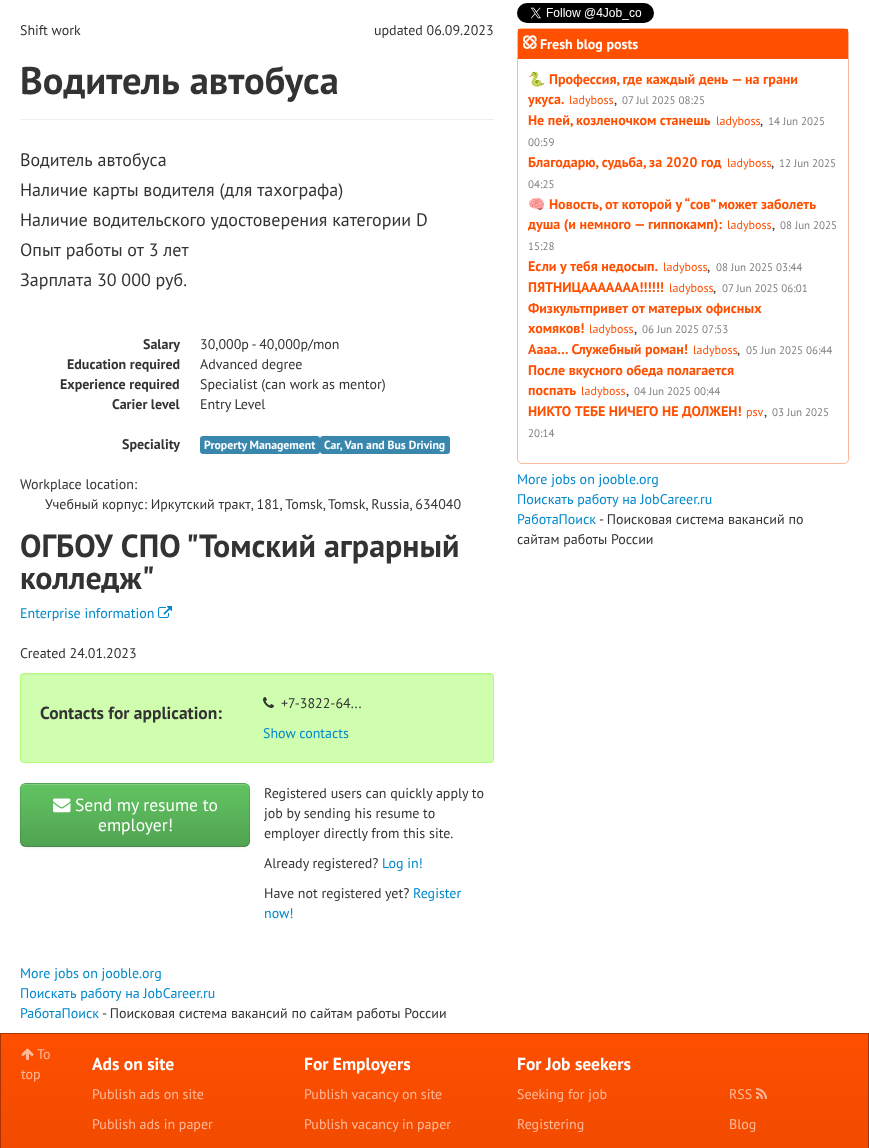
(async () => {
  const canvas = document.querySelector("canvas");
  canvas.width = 869;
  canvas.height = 1148;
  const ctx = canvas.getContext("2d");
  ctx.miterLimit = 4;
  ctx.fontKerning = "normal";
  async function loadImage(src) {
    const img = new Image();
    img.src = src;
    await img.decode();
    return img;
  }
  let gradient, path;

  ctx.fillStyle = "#ffffff";
  ctx.fillRect(0, 0, 869, 1148);
  ctx.fillStyle = "#eeeeee";
  ctx.fillRect(20, 119, 474, 1);
  ctx.fillStyle = "#3a87ad";
  ctx.beginPath();
  ctx.roundRect(200, 436, 120, 18, 3);
  ctx.fill();
  ctx.beginPath();
  ctx.roundRect(320, 436, 130, 18, 3);
  ctx.fill();
  ctx.drawImage(await loadImage("img/1.png"), 158, 606, 14, 12);
  ctx.fillStyle = "#cfffae";
  ctx.beginPath();
  ctx.roundRect(20, 673, 474, 90, 4);
  ctx.fill();
  ctx.fillStyle = "#c5f2a5";
  path = new Path2D("M24 675H490C492 675 493 676 493 678C493 676 493 674 491 674H23L21 676V678C21 676 22 675 24 675Z");
  ctx.fill(path);
  ctx.beginPath();
  ctx.roundRect(20.5, 673.5, 473, 89, 3.5);
  ctx.strokeStyle = "#b2ff7b";
  ctx.stroke();
  ctx.drawImage(await loadImage("img/2.png"), 263, 697, 11, 11);
  ctx.fillStyle = "rgba(0, 0, 0, 0.05)";
  ctx.filter = "blur(1px)";
  ctx.beginPath();
  ctx.roundRect(20, 784, 230, 64, 6);
  ctx.fill();
  ctx.filter = "none";
  ctx.fillStyle = "#5bb75b";
  ctx.beginPath();
  ctx.roundRect(20, 783, 230, 64, 6);
  ctx.fill();
  ctx.save();
  ctx.beginPath();
  ctx.roundRect(20, 783, 230, 64, 6);
  ctx.clip();
  gradient = ctx.createLinearGradient(135, 784, 135, 846);
  gradient.addColorStop(0, "#62c462");
  gradient.addColorStop(1, "#51a351");
  ctx.fillStyle = gradient;
  ctx.fillRect(20, 784, 230, 62);
  ctx.restore();
  ctx.fillStyle = "#81d081";
  path = new Path2D("M26 785H244C247 785 249 787 249 790V789C249 786 247 784 244 784H26C23 784 21 786 21 789V790C21 787 23 785 26 785Z");
  ctx.fill(path);
  path = new Path2D("M248 845C247 846 245.5 846.5 244 846.5H26C24.5 846.5 23 846 22 845");
  ctx.strokeStyle = "rgba(0, 0, 0, 0.25)";
  ctx.stroke(path);
  path = new Path2D("M22 845C21 844 20.5 842.5 20.5 841V789C20.5 787.5 21 786 22 785C23 784 24.5 783.5 26 783.5H244C245.5 783.5 247 784 248 785C249 786 249.5 787.5 249.5 789V841C249.5 842.5 249 844 248 845");
  ctx.strokeStyle = "rgba(0, 0, 0, 0.1)";
  ctx.stroke(path);
  ctx.drawImage(await loadImage("img/3.png"), 53, 798, 18, 15);
  ctx.drawImage(await loadImage("img/4.png"), 517, 3, 137, 20);
  ctx.beginPath();
  ctx.roundRect(517.5, 28.5, 331, 435, 4.5);
  ctx.strokeStyle = "#ffb999";
  ctx.stroke();
  ctx.fillStyle = "#ff4f00";
  ctx.fillRect(518, 29, 330, 30);
  ctx.drawImage(await loadImage("img/5.png"), 523, 35, 14, 14);
  gradient = ctx.createLinearGradient(435, 1034, 435, 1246);
  gradient.addColorStop(0, "#ff4f00");
  gradient.addColorStop(1, "#e64700");
  ctx.fillStyle = gradient;
  ctx.fillRect(1, 1034, 867, 114);
  ctx.strokeStyle = "#a83400";
  ctx.strokeRect(0.5, 1033.5, 868, 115);
  ctx.drawImage(await loadImage("img/6.png"), 21, 1048, 13, 12);
  ctx.drawImage(await loadImage("img/7.png"), 756, 1088, 11, 11);
  ctx.font = "14px PT Sans";
  ctx.fillStyle = "#333333";
  ctx.fillText("Shift work", 20, 35);
  ctx.fillText("updated 06.09.2023", 374, 35);
  ctx.font = "bold 38.5px PT Sans";
  ctx.fillText("Водитель автобуса", 20, 94);
  ctx.font = "18px PT Sans";
  for (const [text, x, y] of [
    ["Водитель автобуса", 20, 166],
    ["Наличие карты водителя (для тахографа)", 20, 196],
    ["Наличие водительского удостоверения категории D", 20, 226],
    ["Опыт работы от 3 лет", 20, 256],
    ["Зарплата 30 000 руб.", 20, 286],
  ]) {
    ctx.fillText(text, x, y);
  }
  ctx.font = "bold 14px PT Sans";
  ctx.fillText("Salary", 143, 349);
  ctx.font = "14px PT Sans";
  ctx.fillText("30,000р - 40,000р/mon", 200, 349);
  ctx.font = "bold 14px PT Sans";
  ctx.fillText("Education required", 67, 369);
  ctx.font = "14px PT Sans";
  ctx.fillText("Advanced degree", 200, 369);
  ctx.font = "bold 14px PT Sans";
  ctx.fillText("Experience required", 60, 389);
  ctx.font = "14px PT Sans";
  ctx.fillText("Specialist (can work as mentor)", 200, 389);
  ctx.font = "bold 14px PT Sans";
  ctx.fillText("Carier level", 112, 409);
  ctx.font = "14px PT Sans";
  ctx.fillText("Entry Level", 200, 409);
  ctx.font = "bold 14px PT Sans";
  ctx.fillText("Speciality", 122, 449);
  ctx.font = "bold 11.75px PT Sans";
  ctx.fillStyle = "#ffffff";
  ctx.fillText("Property Management", 204, 449);
  ctx.fillText("Car, Van and Bus Driving", 324, 449);
  ctx.font = "14px PT Sans";
  ctx.fillStyle = "#333333";
  for (const [text, x, y] of [
    ["Workplace location:", 20, 489],
    ["Учебный корпус: Иркутский тракт, 181, Tomsk,", 45, 509],
    ["Tomsk, Russia, 634040", 328, 509],
  ]) {
    ctx.fillText(text, x, y);
  }
  ctx.font = "bold 32px PT Sans";
  ctx.fillText("ОГБОУ СПО \"Томский аграрный", 20, 557);
  ctx.fillText("колледж\"", 20, 589);
  ctx.font = "14px PT Sans";
  ctx.fillStyle = "#0088cc";
  ctx.fillText("Enterprise information", 20, 618);
  ctx.fillStyle = "#333333";
  ctx.fillText("Created 24.01.2023", 20, 658);
  ctx.font = "bold 17.5px PT Sans";
  ctx.fillText("Contacts for application:", 40, 719);
  ctx.font = "14px PT Sans";
  ctx.fillText("+7-3822-64...", 281, 708);
  ctx.fillStyle = "#0088cc";
  ctx.fillText("Show contacts", 263, 738);
  ctx.font = "17.5px PT Sans";
  ctx.fillStyle = "#ffffff";
  ctx.fillText("Send my resume to", 75, 811);
  ctx.fillText("employer!", 98, 831);
  ctx.font = "14px PT Sans";
  ctx.fillStyle = "#333333";
  for (const [text, x, y] of [
    ["Registered users can quickly apply to", 264, 798],
    ["job by sending his resume to", 264, 818],
    ["employer directly from this site.", 264, 838],
    ["Already registered?", 264, 868],
  ]) {
    ctx.fillText(text, x, y);
  }
  ctx.fillStyle = "#0088cc";
  ctx.fillText("Log in!", 382, 868);
  ctx.fillStyle = "#333333";
  ctx.fillText("Have not registered yet?", 264, 898);
  ctx.fillStyle = "#0088cc";
  for (const [text, x, y] of [
    ["Register", 413, 898],
    ["now!", 264, 918],
    ["More jobs on jooble.org", 20, 978],
    ["Поискать работу на JobCareer.ru", 20, 998],
    ["РаботаПоиск", 20, 1018],
  ]) {
    ctx.fillText(text, x, y);
  }
  ctx.fillStyle = "#333333";
  ctx.fillText("- Поисковая система вакансий по сайтам работы России", 102, 1018);
  ctx.font = "bold 14px PT Sans";
  ctx.fillStyle = "#ffffff";
  ctx.fillText("Fresh blog posts", 540, 49);
  ctx.font = "bold 14px Noto Color Emoji";
  ctx.fillStyle = "#ff4f00";
  ctx.fillText("🐍", 528, 84);
  ctx.font = "bold 14px PT Sans";
  ctx.fillText("Профессия, где каждый день — на грани", 549, 84);
  ctx.fillText("укуса.", 528, 104);
  ctx.font = "12px PT Sans";
  ctx.fillText("ladyboss", 569, 104);
  ctx.font = "14px PT Sans";
  ctx.fillStyle = "#333333";
  ctx.fillText(",", 614, 104);
  ctx.font = "11px PT Sans";
  ctx.fillStyle = "#808080";
  ctx.fillText("07 Jul 2025 08:25", 622, 104);
  ctx.font = "bold 14px PT Sans";
  ctx.fillStyle = "#ff4f00";
  ctx.fillText("Не пей, козленочком станешь", 528, 125);
  ctx.font = "12px PT Sans";
  ctx.fillText("ladyboss", 716, 125);
  ctx.font = "14px PT Sans";
  ctx.fillStyle = "#333333";
  ctx.fillText(",", 760, 125);
  ctx.font = "11px PT Sans";
  ctx.fillStyle = "#808080";
  ctx.fillText("14 Jun 2025", 768, 125);
  ctx.fillText("00:59", 528, 146);
  ctx.font = "bold 14px PT Sans";
  ctx.fillStyle = "#ff4f00";
  ctx.fillText("Благодарю, судьба, за 2020 год", 528, 167);
  ctx.font = "12px PT Sans";
  ctx.fillText("ladyboss", 727, 167);
  ctx.font = "14px PT Sans";
  ctx.fillStyle = "#333333";
  ctx.fillText(",", 771, 167);
  ctx.font = "11px PT Sans";
  ctx.fillStyle = "#808080";
  ctx.fillText("12 Jun 2025", 779, 167);
  ctx.fillText("04:25", 528, 188);
  ctx.font = "bold 14px Noto Color Emoji";
  ctx.fillStyle = "#ff4f00";
  ctx.fillText("🧠", 528, 209);
  ctx.font = "bold 14px PT Sans";
  ctx.fillText("Новость, от которой у “сов” может заболеть", 549, 209);
  ctx.fillText("душа (и немного — гиппокамп):", 528, 229);
  ctx.font = "12px PT Sans";
  ctx.fillText("ladyboss", 727, 229);
  ctx.font = "14px PT Sans";
  ctx.fillStyle = "#333333";
  ctx.fillText(",", 772, 229);
  ctx.font = "11px PT Sans";
  ctx.fillStyle = "#808080";
  ctx.fillText("08 Jun 2025", 780, 229);
  ctx.fillText("15:28", 528, 250);
  ctx.font = "bold 14px PT Sans";
  ctx.fillStyle = "#ff4f00";
  ctx.fillText("Если у тебя недосып.", 528, 271);
  ctx.font = "12px PT Sans";
  ctx.fillText("ladyboss", 663, 271);
  ctx.font = "14px PT Sans";
  ctx.fillStyle = "#333333";
  ctx.fillText(",", 707, 271);
  ctx.font = "11px PT Sans";
  ctx.fillStyle = "#808080";
  ctx.fillText("08 Jun 2025 03:44", 716, 271);
  ctx.font = "bold 14px PT Sans";
  ctx.fillStyle = "#ff4f00";
  ctx.fillText("ПЯТНИЦААААААА!!!!!!", 528, 292);
  ctx.font = "12px PT Sans";
  ctx.fillText("ladyboss", 669, 292);
  ctx.font = "14px PT Sans";
  ctx.fillStyle = "#333333";
  ctx.fillText(",", 713, 292);
  ctx.font = "11px PT Sans";
  ctx.fillStyle = "#808080";
  ctx.fillText("07 Jun 2025 06:01", 722, 292);
  ctx.font = "bold 14px PT Sans";
  ctx.fillStyle = "#ff4f00";
  ctx.fillText("Физкультпривет от матерых офисных", 528, 313);
  ctx.fillText("хомяков!", 528, 333);
  ctx.font = "12px PT Sans";
  ctx.fillText("ladyboss", 589, 333);
  ctx.font = "14px PT Sans";
  ctx.fillStyle = "#333333";
  ctx.fillText(",", 634, 333);
  ctx.font = "11px PT Sans";
  ctx.fillStyle = "#808080";
  ctx.fillText("06 Jun 2025 07:53", 642, 333);
  ctx.font = "bold 14px PT Sans";
  ctx.fillStyle = "#ff4f00";
  ctx.fillText("Аааа… Служебный роман!", 528, 354);
  ctx.font = "12px PT Sans";
  ctx.fillText("ladyboss", 693, 354);
  ctx.font = "14px PT Sans";
  ctx.fillStyle = "#333333";
  ctx.fillText(",", 737, 354);
  ctx.font = "11px PT Sans";
  ctx.fillStyle = "#808080";
  ctx.fillText("05 Jun 2025 06:44", 746, 354);
  ctx.font = "bold 14px PT Sans";
  ctx.fillStyle = "#ff4f00";
  ctx.fillText("После вкусного обеда полагается", 528, 375);
  ctx.fillText("поспать", 528, 395);
  ctx.font = "12px PT Sans";
  ctx.fillText("ladyboss", 581, 395);
  ctx.font = "14px PT Sans";
  ctx.fillStyle = "#333333";
  ctx.fillText(",", 626, 395);
  ctx.font = "11px PT Sans";
  ctx.fillStyle = "#808080";
  ctx.fillText("04 Jun 2025 00:44", 634, 395);
  ctx.font = "bold 14px PT Sans";
  ctx.fillStyle = "#ff4f00";
  ctx.fillText("НИКТО ТЕБЕ НИЧЕГО НЕ ДОЛЖЕН!", 528, 416);
  ctx.font = "12px PT Sans";
  ctx.fillText("psv", 746, 416);
  ctx.font = "14px PT Sans";
  ctx.fillStyle = "#333333";
  ctx.fillText(",", 764, 416);
  ctx.font = "11px PT Sans";
  ctx.fillStyle = "#808080";
  ctx.fillText("03 Jun 2025", 772, 416);
  ctx.fillText("20:14", 528, 437);
  ctx.font = "14px PT Sans";
  ctx.fillStyle = "#0088cc";
  for (const [text, x, y] of [
    ["More jobs on jooble.org", 517, 484],
    ["Поискать работу на JobCareer.ru", 517, 504],
    ["РаботаПоиск", 517, 524],
  ]) {
    ctx.fillText(text, x, y);
  }
  ctx.fillStyle = "#333333";
  ctx.fillText("- Поисковая система вакансий по", 599, 524);
  ctx.fillText("сайтам работы России", 517, 544);
  ctx.fillStyle = "#ffb999";
  ctx.fillText("To", 37, 1059);
  ctx.fillText("top", 21, 1079);
  ctx.font = "bold 17.5px PT Sans";
  ctx.fillStyle = "#ffffff";
  ctx.fillText("Ads on site", 92, 1070);
  ctx.font = "14px PT Sans";
  ctx.fillStyle = "#ffb999";
  ctx.fillText("Publish ads on site", 92, 1099);
  ctx.fillText("Publish ads in paper", 92, 1129);
  ctx.font = "bold 17.5px PT Sans";
  ctx.fillStyle = "#ffffff";
  ctx.fillText("For Employers", 304, 1070);
  ctx.font = "14px PT Sans";
  ctx.fillStyle = "#ffb999";
  ctx.fillText("Publish vacancy on site", 304, 1099);
  ctx.fillText("Publish vacancy in paper", 304, 1129);
  ctx.font = "bold 17.5px PT Sans";
  ctx.fillStyle = "#ffffff";
  ctx.fillText("For Job seekers", 517, 1070);
  ctx.font = "14px PT Sans";
  ctx.fillStyle = "#ffb999";
  for (const [text, x, y] of [
    ["Seeking for job", 517, 1099],
    ["Registering", 517, 1129],
    ["RSS", 729, 1099],
    ["Blog", 729, 1129],
  ]) {
    ctx.fillText(text, x, y);
  }
})();
